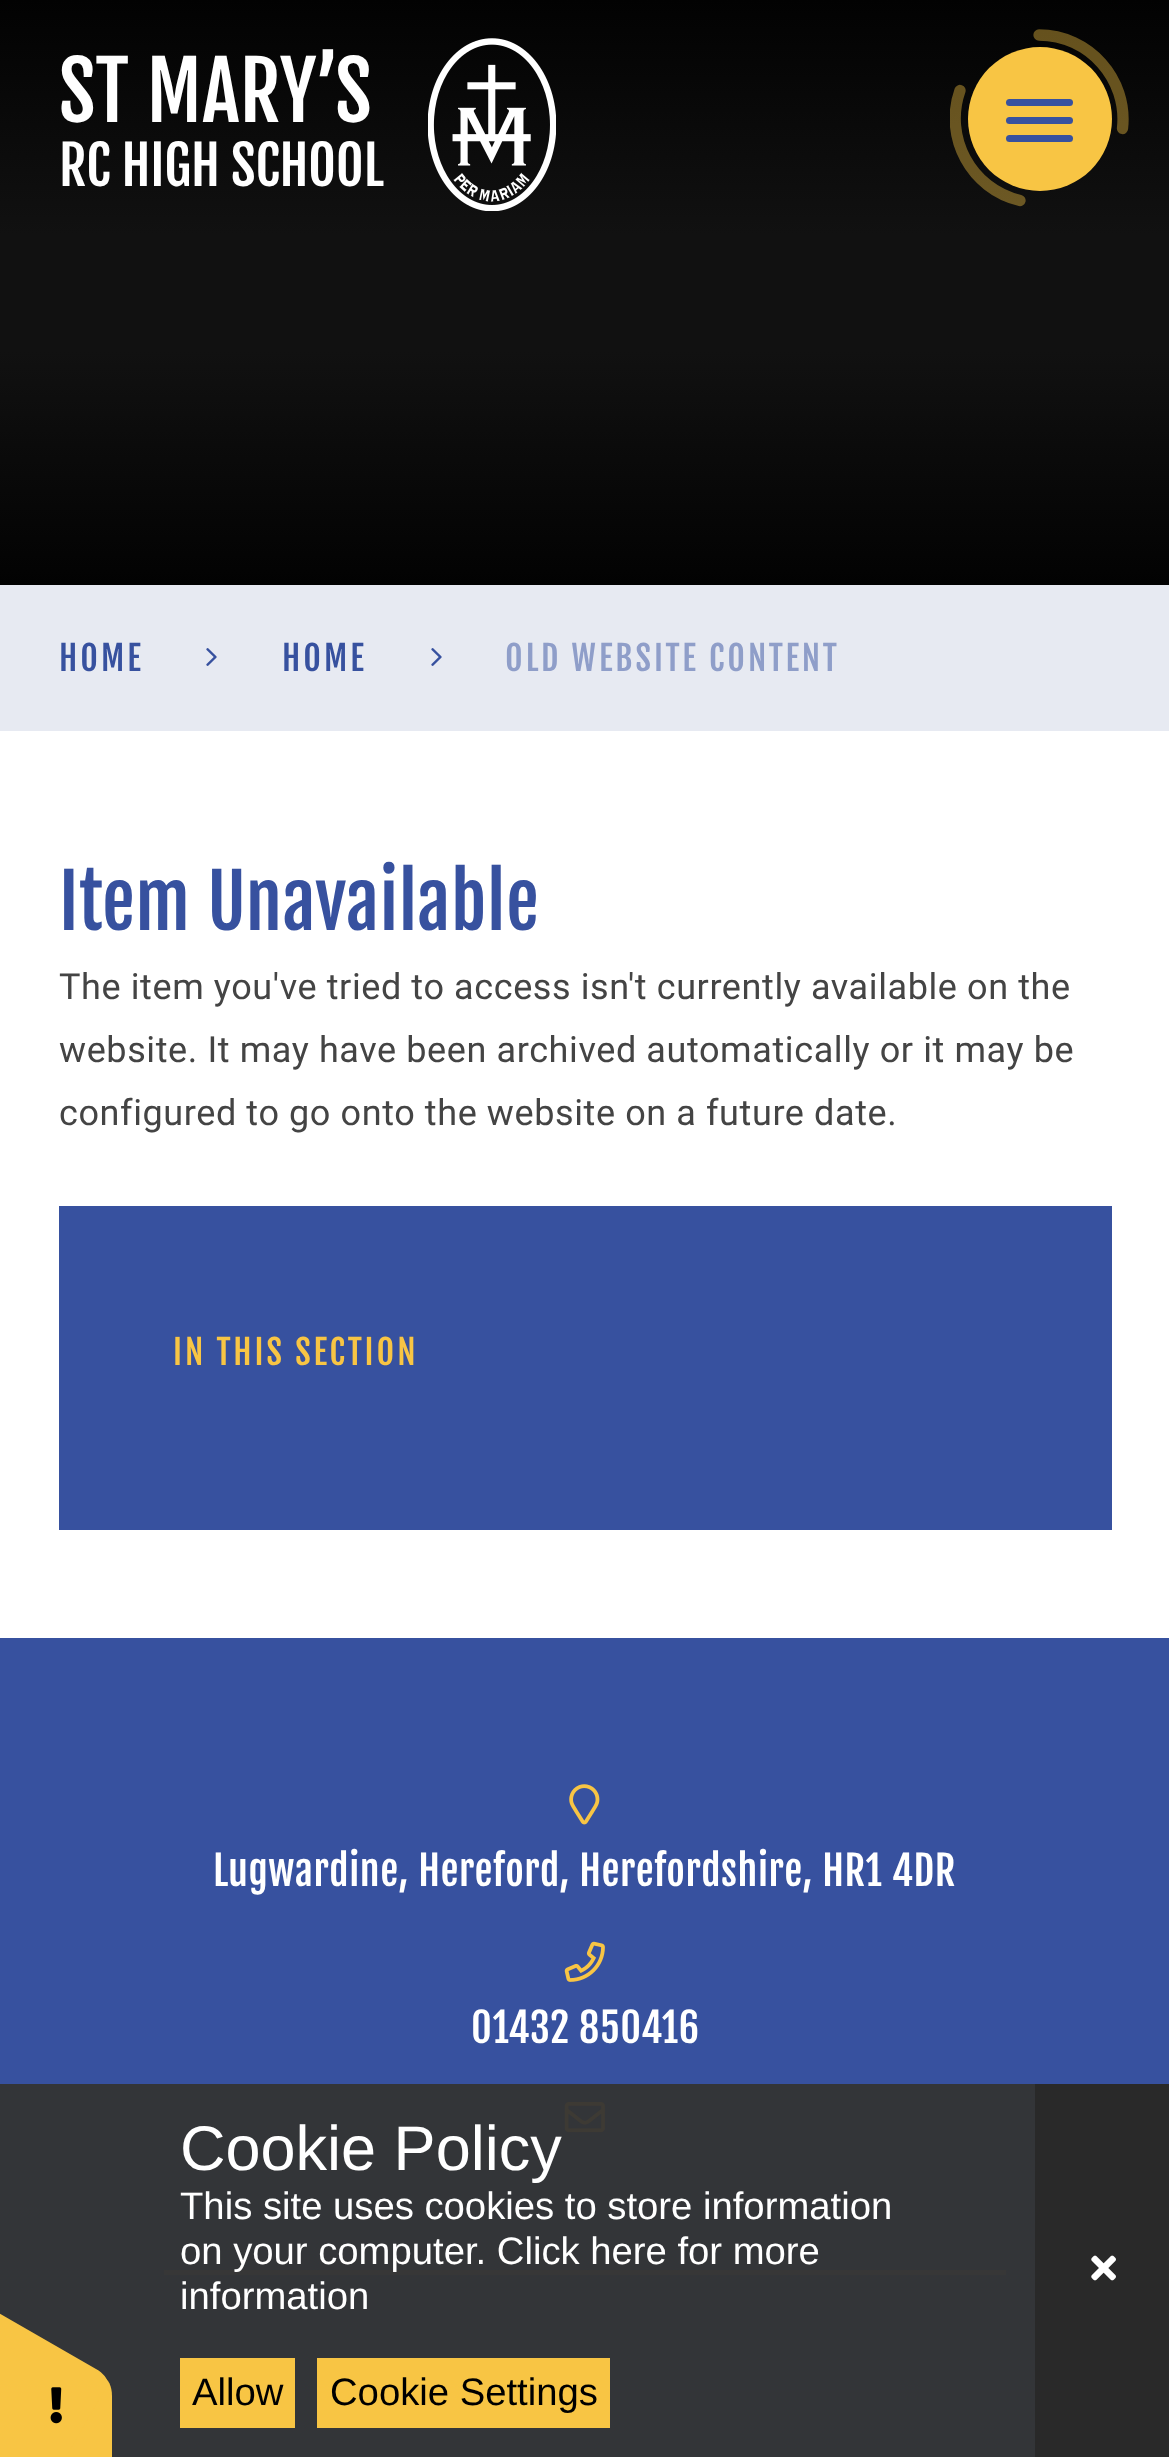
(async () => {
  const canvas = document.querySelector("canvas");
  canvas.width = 1169;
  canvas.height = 2457;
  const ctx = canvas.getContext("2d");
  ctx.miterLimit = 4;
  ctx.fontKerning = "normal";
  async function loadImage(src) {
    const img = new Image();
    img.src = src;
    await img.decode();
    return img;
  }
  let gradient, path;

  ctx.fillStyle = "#ffffff";
  ctx.fillRect(0, 0, 1169, 2457);
  gradient = ctx.createLinearGradient(585, 0, 585, 585);
  gradient.addColorStop(0, "#020202");
  gradient.addColorStop(0.4, "#111111");
  gradient.addColorStop(0.6, "#111111");
  gradient.addColorStop(1, "#020202");
  ctx.fillStyle = gradient;
  ctx.fillRect(0, 0, 1169, 585);
  ctx.drawImage(await loadImage("img/1.png"), 428, 38, 128, 173);
  ctx.fillStyle = "#f8c544";
  ctx.beginPath();
  ctx.arc(1040, 119, 72, 0, Math.PI * 2);
  ctx.fill();
  ctx.save();
  ctx.beginPath();
  ctx.rect(950, 29, 180, 180);
  ctx.clip();
  path = new Path2D("M1039 35C1089 35 1128 79 1122.5 128.5M1020 200.5C971 189 943.5 137 960 90.5");
  ctx.strokeStyle = "rgba(248, 197, 68, 0.4)";
  ctx.lineWidth = 11.3;
  ctx.lineCap = "round";
  ctx.stroke(path);
  ctx.restore();
  ctx.fillStyle = "#37519f";
  ctx.beginPath();
  ctx.roundRect(1006, 99, 67, 7, 3.5);
  ctx.fill();
  ctx.beginPath();
  ctx.roundRect(1006, 117, 67, 7, 3.5);
  ctx.fill();
  ctx.beginPath();
  ctx.roundRect(1006, 135, 67, 7, 3.5);
  ctx.fill();
  ctx.fillStyle = "#e7eaf2";
  ctx.fillRect(0, 585, 1169, 146);
  ctx.drawImage(await loadImage("img/2.png"), 206, 648, 11, 18);
  ctx.drawImage(await loadImage("img/2.png"), 431, 648, 11, 18);
  for (const [x, y, w, h, color] of [
    [59, 1206, 1053, 324, "#37519f"],
    [0, 1638, 1169, 446, "#37519f"],
    [0, 2084, 1035, 373, "#333538"],
    [164, 2270, 842, 5, "#373737"],
  ]) {
    ctx.fillStyle = color;
    ctx.fillRect(x, y, w, h);
  }
  ctx.drawImage(await loadImage("img/3.png"), 569, 1784, 31, 41);
  ctx.drawImage(await loadImage("img/4.png"), 564, 1941, 41, 41);
  ctx.drawImage(await loadImage("img/5.png"), 564, 2102, 41, 31);
  ctx.fillStyle = "#f8c544";
  path = new Path2D("M112 2396V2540C112 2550 108 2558 103 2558H-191C-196 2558-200 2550-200 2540V2396C-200 2386-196 2378-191 2378H103C108 2378 112 2386 112 2396Z");
  ctx.fill(path);
  path = new Path2D("M-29 2297L96 2369C105 2374 110 2382 107 2386L-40 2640C-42 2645-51 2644-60 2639L-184 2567C-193 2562-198 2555-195 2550L-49 2296C-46 2292-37 2292-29 2297Z");
  ctx.fill(path);
  ctx.drawImage(await loadImage("img/6.png"), 50, 2387, 12, 37);
  for (const [x, y, w, h, color] of [
    [180, 2358, 115, 70, "#f8c544"],
    [317, 2358, 293, 70, "#f8c544"],
    [1035, 2084, 134, 373, "#292929"],
  ]) {
    ctx.fillStyle = color;
    ctx.fillRect(x, y, w, h);
  }
  ctx.drawImage(await loadImage("img/7.png"), 1091, 2255, 25, 26);
  ctx.letterSpacing = "0.5px";
  ctx.font = "79.5px Fjalla One";
  ctx.fillStyle = "#ffffff";
  ctx.fillText("ST MARY’S", 59, 122);
  ctx.letterSpacing = "-0.25px";
  ctx.font = "53.5px Fjalla One";
  ctx.fillText("RC HIGH SCHOOL", 59, 186);
  ctx.letterSpacing = "3px";
  ctx.font = "33.75px Fjalla One";
  ctx.fillStyle = "#37519f";
  ctx.fillText("HOME", 59, 671);
  ctx.fillText("HOME", 282, 671);
  ctx.fillStyle = "#8f9ec9";
  ctx.fillText("OLD WEBSITE CONTENT", 505, 671);
  ctx.letterSpacing = "0.6px";
  ctx.font = "73.5px Fjalla One";
  ctx.fillStyle = "#37519f";
  ctx.fillText("Item Unavailable", 59, 930);
  ctx.font = "36px Roboto";
  ctx.fillStyle = "#444444";
  for (const [text, x, y] of [
    ["The item you've tried to access isn't currently available on the", 59, 999],
    ["website. It may have been archived automatically or it may be", 59, 1062],
    ["configured to go onto the website on a future date.", 59, 1125],
  ]) {
    ctx.fillText(text, x, y);
  }
  ctx.letterSpacing = "3px";
  ctx.font = "33.75px Fjalla One";
  ctx.fillStyle = "#f8c544";
  ctx.fillText("IN THIS SECTION", 173, 1365);
  ctx.letterSpacing = "0.6px";
  ctx.font = "40.2px Fjalla One";
  ctx.fillStyle = "#ffffff";
  ctx.fillText("Lugwardine, Hereford, Herefordshire, HR1 4DR", 213, 1886);
  ctx.fillText("01432 850416", 471, 2043);
  ctx.letterSpacing = "0px";
  ctx.font = "63px Liberation Sans";
  ctx.fillText("Cookie Policy", 180, 2170);
  ctx.font = "38.25px Liberation Sans";
  for (const [text, x, y] of [
    ["This site uses cookies to store information", 180, 2219],
    ["on your computer. Click here for more", 180, 2264],
    ["information", 180, 2309],
  ]) {
    ctx.fillText(text, x, y);
  }
  ctx.fillStyle = "#000000";
  ctx.fillText("Allow", 192, 2405);
  ctx.fillText("Cookie Settings", 330, 2405);
})();
